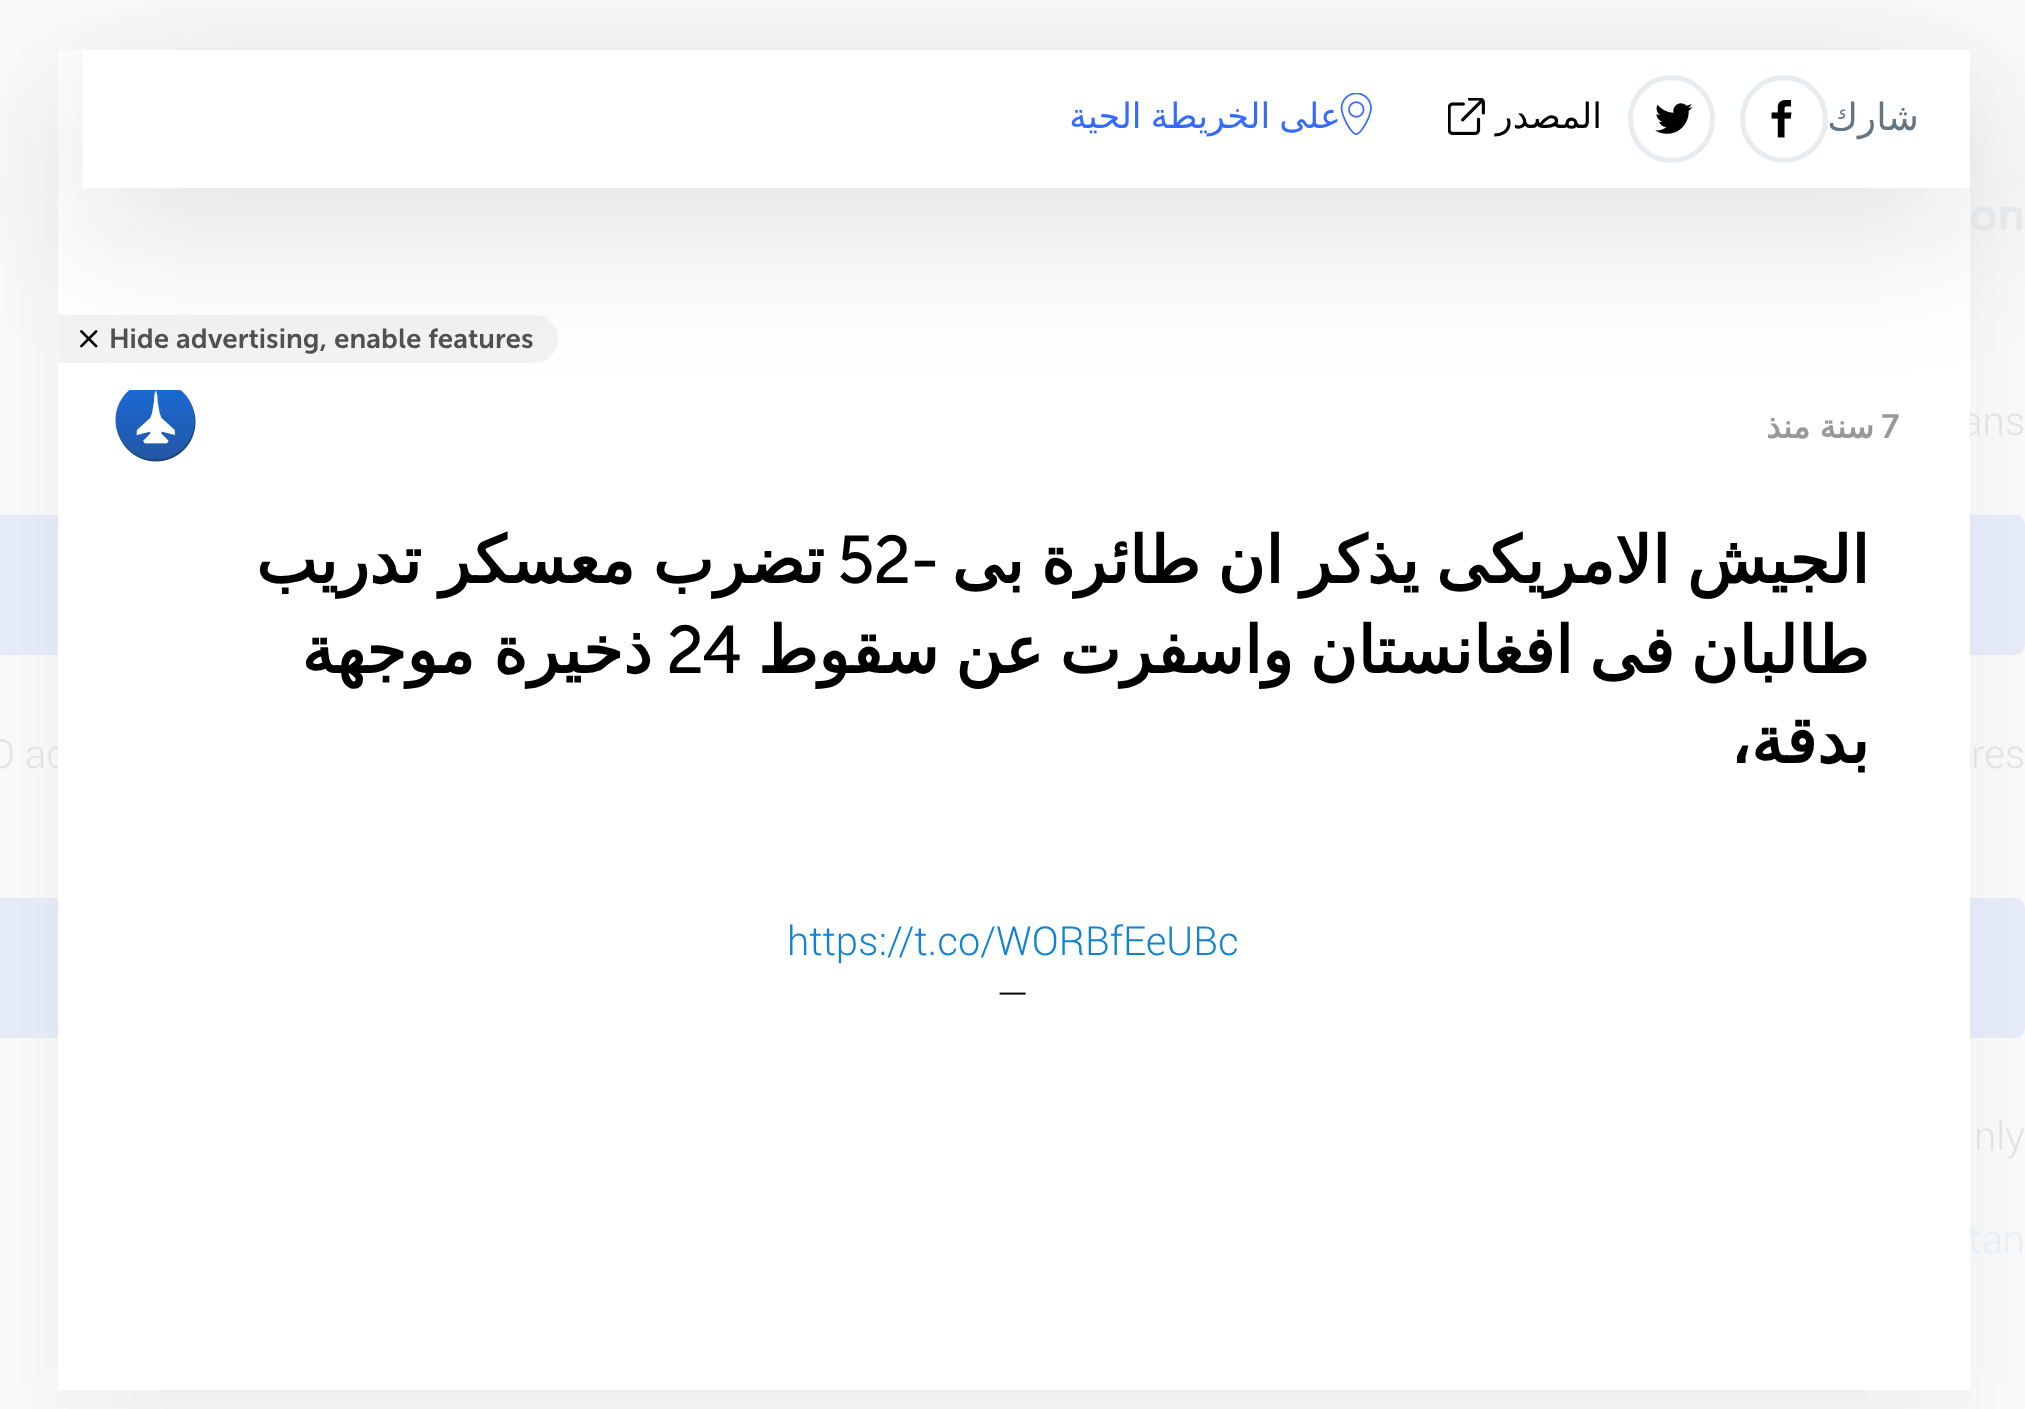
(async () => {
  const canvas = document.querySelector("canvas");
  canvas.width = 2025;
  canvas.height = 1409;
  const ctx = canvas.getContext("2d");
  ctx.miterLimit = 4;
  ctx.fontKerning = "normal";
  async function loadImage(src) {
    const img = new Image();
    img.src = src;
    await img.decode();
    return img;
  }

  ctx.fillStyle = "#fbfbfb";
  ctx.fillRect(0, 0, 2025, 1409);
  ctx.fillStyle = "#e7edfb";
  ctx.beginPath();
  ctx.roundRect(0, 515, 2025, 140, [0, 10, 10, 0]);
  ctx.fill();
  ctx.beginPath();
  ctx.roundRect(0, 898, 2025, 140, [0, 10, 10, 0]);
  ctx.fill();
  ctx.fillStyle = "rgba(0, 0, 0, 0.05)";
  ctx.filter = "blur(62.5px)";
  ctx.beginPath();
  ctx.rect(58, 113, 1912, 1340);
  ctx.fill();
  ctx.filter = "none";
  ctx.font = "600 45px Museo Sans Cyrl";
  ctx.fillStyle = "#ebeced";
  ctx.fillText("on", 1969, 230);
  ctx.font = "300 40px Roboto";
  ctx.fillStyle = "#e2e2e2";
  for (const [text, x, y] of [
    ["ans", 1961, 435],
    ["res", 1971, 768],
    ["O ac", -12, 768],
    ["nly", 1974, 1150],
  ]) {
    ctx.fillText(text, x, y);
  }
  ctx.fillStyle = "#e4eff7";
  ctx.fillText("tan", 1968, 1253);
  ctx.fillStyle = "#ffffff";
  ctx.fillRect(58, 50, 1912, 1340);
  ctx.fillStyle = "#f3f3f3";
  ctx.beginPath();
  ctx.roundRect(58, 315, 500, 48, [0, 24, 24, 0]);
  ctx.fill();
  ctx.drawImage(await loadImage("img/5.png"), 80, 330, 18, 18);
  ctx.drawImage(await loadImage("img/6.png"), 115, 390, 81, 72);
  ctx.fillStyle = "rgba(16, 15, 15, 0.14)";
  ctx.filter = "blur(75px)";
  ctx.beginPath();
  ctx.rect(83, 88, 1887, 137);
  ctx.fill();
  ctx.filter = "none";
  ctx.fillStyle = "#ffffff";
  ctx.fillRect(83, 50, 1887, 138);
  ctx.drawImage(await loadImage("img/2.png"), 1655, 103, 38, 31);
  ctx.beginPath();
  ctx.roundRect(1630.5, 77.5, 82, 83, 41);
  ctx.strokeStyle = "#e6ecef";
  ctx.lineWidth = 5;
  ctx.stroke();
  ctx.drawImage(await loadImage("img/1.png"), 1771, 100, 21, 38);
  ctx.beginPath();
  ctx.arc(1784, 119, 41.5, 0, Math.PI * 2);
  ctx.stroke();
  ctx.direction = "rtl";
  ctx.font = "37.5px DejaVu Sans";
  ctx.fillStyle = "#66757f";
  ctx.fillText("شارك", 1919, 130);
  ctx.wordSpacing = "-2px";
  ctx.font = "35px DejaVu Sans";
  ctx.fillStyle = "#346afe";
  ctx.fillText("على الخريطة الحية", 1341, 128);
  ctx.drawImage(await loadImage("img/4.png"), 1340, 93, 32, 42);
  ctx.drawImage(await loadImage("img/3.png"), 1448, 98, 37, 37);
  ctx.wordSpacing = "0px";
  ctx.fillStyle = "#000000";
  ctx.fillText("المصدر", 1602, 128);
  ctx.direction = "ltr";
  ctx.font = "bold 32.5px 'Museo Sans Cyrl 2'";
  ctx.fillStyle = "#999999";
  ctx.fillText("7", 1881, 438);
  ctx.wordSpacing = "-1px";
  ctx.direction = "rtl";
  ctx.font = "bold 32.5px DejaVu Sans";
  ctx.fillText("سنة منذ", 1874, 438);
  ctx.wordSpacing = "0px";
  ctx.direction = "ltr";
  ctx.font = "600 27.5px Museo Sans Cyrl";
  ctx.fillStyle = "#505050";
  ctx.fillText("Hide advertising, enable features", 109, 348);
  ctx.font = "300 40px Roboto";
  ctx.fillStyle = "#000000";
  ctx.fillText("—", 996, 1008);
  ctx.fillStyle = "#1082d2";
  ctx.fillText("https://t.co/WORBfEeUBc", 787, 955);
  ctx.direction = "rtl";
  ctx.font = "bold 65px DejaVu Sans";
  ctx.fillStyle = "#000000";
  ctx.fillText("بدقة،", 1869, 763);
  ctx.wordSpacing = "-4.5px";
  ctx.fillText("طالبان فى افغانستان واسفرت عن سقوط", 1869, 673);
  ctx.wordSpacing = "0px";
  ctx.direction = "ltr";
  ctx.font = "bold 65px Museo Sans Cyrl";
  ctx.fillText("24", 666, 673);
  ctx.wordSpacing = "-2px";
  ctx.direction = "rtl";
  ctx.font = "bold 65px DejaVu Sans";
  ctx.fillText("ذخيرة موجهة", 652, 673);
  ctx.wordSpacing = "-3.75px";
  ctx.fillText("الجيش الامريكى يذكر ان طائرة بى", 1869, 583);
  ctx.wordSpacing = "0px";
  ctx.font = "bold 65px Museo Sans Cyrl";
  ctx.fillText("-", 938, 583);
  ctx.direction = "ltr";
  ctx.fillText("52", 837, 583);
  ctx.wordSpacing = "-3px";
  ctx.direction = "rtl";
  ctx.font = "bold 65px DejaVu Sans";
  ctx.fillText("تضرب معسكر تدريب", 824, 583);
})();
